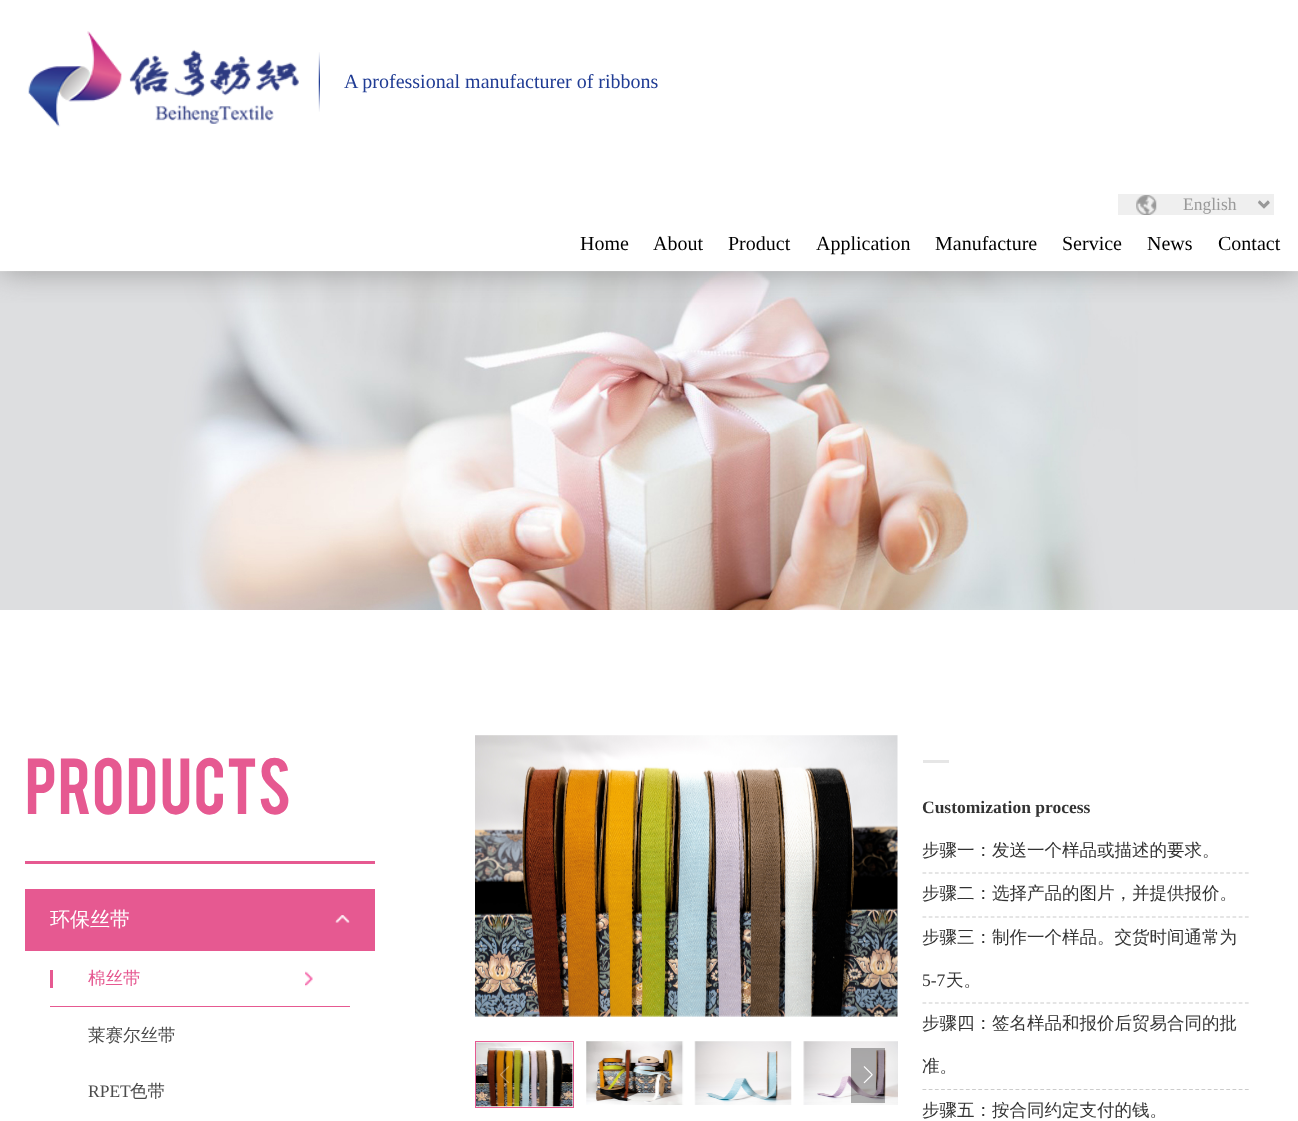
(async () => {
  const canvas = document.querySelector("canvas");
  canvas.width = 1298;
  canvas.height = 1121;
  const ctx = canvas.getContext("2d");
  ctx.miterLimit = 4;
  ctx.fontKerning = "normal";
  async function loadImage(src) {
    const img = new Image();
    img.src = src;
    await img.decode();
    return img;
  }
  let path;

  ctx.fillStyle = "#ffffff";
  ctx.fillRect(0, 0, 1298, 1121);
  ctx.drawImage(await loadImage("img/4.png"), 0, 271, 1298, 339);
  ctx.save();
  ctx.beginPath();
  ctx.rect(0, 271, 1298, 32);
  ctx.clip();
  ctx.fillStyle = "#999999";
  ctx.filter = "blur(15.5px)";
  ctx.beginPath();
  ctx.rect(0, 0, 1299, 271);
  ctx.fill();
  ctx.filter = "none";
  ctx.restore();
  ctx.drawImage(await loadImage("img/1.png"), 28, 31, 271, 96);
  ctx.drawImage(await loadImage("img/2.png"), 318, 52, 2, 60);
  ctx.fillStyle = "#efefef";
  ctx.fillRect(1118, 194, 156, 21);
  ctx.drawImage(await loadImage("img/3.png"), 1136, 195, 134, 20);
  path = new Path2D("M1259 202L1264 207L1269 202");
  ctx.strokeStyle = "#999999";
  ctx.lineWidth = 2.5;
  ctx.stroke(path);
  ctx.fillStyle = "#e65991";
  ctx.fillRect(25, 861, 350, 3);
  ctx.fillRect(25, 889, 350, 62);
  ctx.drawImage(await loadImage("img/5.png"), 335, 915, 15, 8);
  path = new Path2D("M25 950.5H375");
  ctx.strokeStyle = "#e65991";
  ctx.lineWidth = 1.2;
  ctx.setLineDash([3.75, 2.55]);
  ctx.stroke(path);
  ctx.drawImage(await loadImage("img/6.png"), 305, 971, 8, 16);
  ctx.fillRect(50, 1006, 300, 1);
  ctx.fillRect(50, 970, 3, 18);
  ctx.drawImage(await loadImage("img/7.png"), 475, 735, 423, 282);
  ctx.lineWidth = 1;
  ctx.setLineDash([]);
  ctx.strokeRect(475.5, 1041.5, 98, 66);
  ctx.drawImage(await loadImage("img/8.png"), 476, 1042, 98, 65);
  ctx.drawImage(await loadImage("img/9.png"), 586, 1041, 98, 64);
  ctx.drawImage(await loadImage("img/10.png"), 694, 1041, 98, 64);
  ctx.drawImage(await loadImage("img/11.png"), 803, 1041, 95, 64);
  ctx.fillStyle = "rgba(0, 0, 0, 0.1)";
  ctx.fillRect(488, 1048, 33, 55);
  ctx.drawImage(await loadImage("img/12.png"), 500, 1066, 9, 18);
  ctx.fillStyle = "rgba(0, 0, 0, 0.3)";
  ctx.fillRect(851, 1048, 34, 55);
  ctx.drawImage(await loadImage("img/13.png"), 863, 1066, 10, 18);
  ctx.fillStyle = "#e6e6e6";
  ctx.fillRect(923, 760, 26, 3);
  path = new Path2D("M922.5 873H1249");
  ctx.strokeStyle = "#cccccc";
  ctx.lineWidth = 1.2;
  ctx.setLineDash([3.75, 2.45]);
  ctx.stroke(path);
  path = new Path2D("M922.5 917H1249");
  ctx.stroke(path);
  path = new Path2D("M922.5 1003H1249");
  ctx.stroke(path);
  path = new Path2D("M922.5 1089.5H1249");
  ctx.stroke(path);
  ctx.font = "20px Liberation Serif";
  ctx.fillStyle = "#203c94";
  ctx.fillText("A professional manufacturer of ribbons", 344, 88);
  ctx.font = "17.5px Liberation Serif";
  ctx.fillStyle = "#999999";
  ctx.fillText("English", 1183, 210);
  ctx.font = "20px Liberation Serif";
  ctx.fillStyle = "#000000";
  for (const [text, x, y] of [
    ["Home", 580, 250],
    ["About", 653, 250],
    ["Product", 728, 250],
    ["Application", 816, 250],
    ["Manufacture", 935, 250],
    ["Service", 1062, 250],
    ["News", 1147, 250],
    ["Contact", 1218, 250],
  ]) {
    ctx.fillText(text, x, y);
  }
  ctx.font = "62.5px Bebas";
  ctx.fillStyle = "#e65991";
  ctx.fillText("PRODUCTS", 25, 814);
  ctx.font = "500 20px WenQuanYi Zen Hei";
  ctx.fillStyle = "#ffffff";
  ctx.fillText("环保丝带", 50, 926);
  ctx.font = "500 17.5px WenQuanYi Zen Hei";
  ctx.fillStyle = "#e65991";
  ctx.fillText("棉丝带", 88, 984);
  ctx.fillStyle = "#4c4c4c";
  ctx.fillText("莱赛尔丝带", 88, 1041);
  ctx.font = "17.5px Liberation Serif";
  ctx.fillText("RPET", 88, 1097);
  ctx.font = "500 17.5px WenQuanYi Zen Hei";
  ctx.fillText("色带", 130, 1097);
  ctx.font = "bold 17.5px Liberation Serif";
  ctx.fillStyle = "#333333";
  ctx.fillText("Customization process", 922, 813);
  ctx.font = "500 17.5px WenQuanYi Zen Hei";
  for (const [text, x, y] of [
    ["步骤一：发送一个样品或描述的要求。", 922, 856],
    ["步骤二：选择产品的图片，并提供报价。", 922, 899],
    ["步骤三：制作一个样品。交货时间通常为", 922, 943],
  ]) {
    ctx.fillText(text, x, y);
  }
  ctx.font = "17.5px Liberation Serif";
  ctx.fillText("5-7", 922, 986);
  ctx.font = "500 17.5px WenQuanYi Zen Hei";
  for (const [text, x, y] of [
    ["天。", 946, 986],
    ["步骤四：签名样品和报价后贸易合同的批", 922, 1029],
    ["准。", 922, 1072],
    ["步骤五：按合同约定支付的钱。", 922, 1116],
  ]) {
    ctx.fillText(text, x, y);
  }
})();
